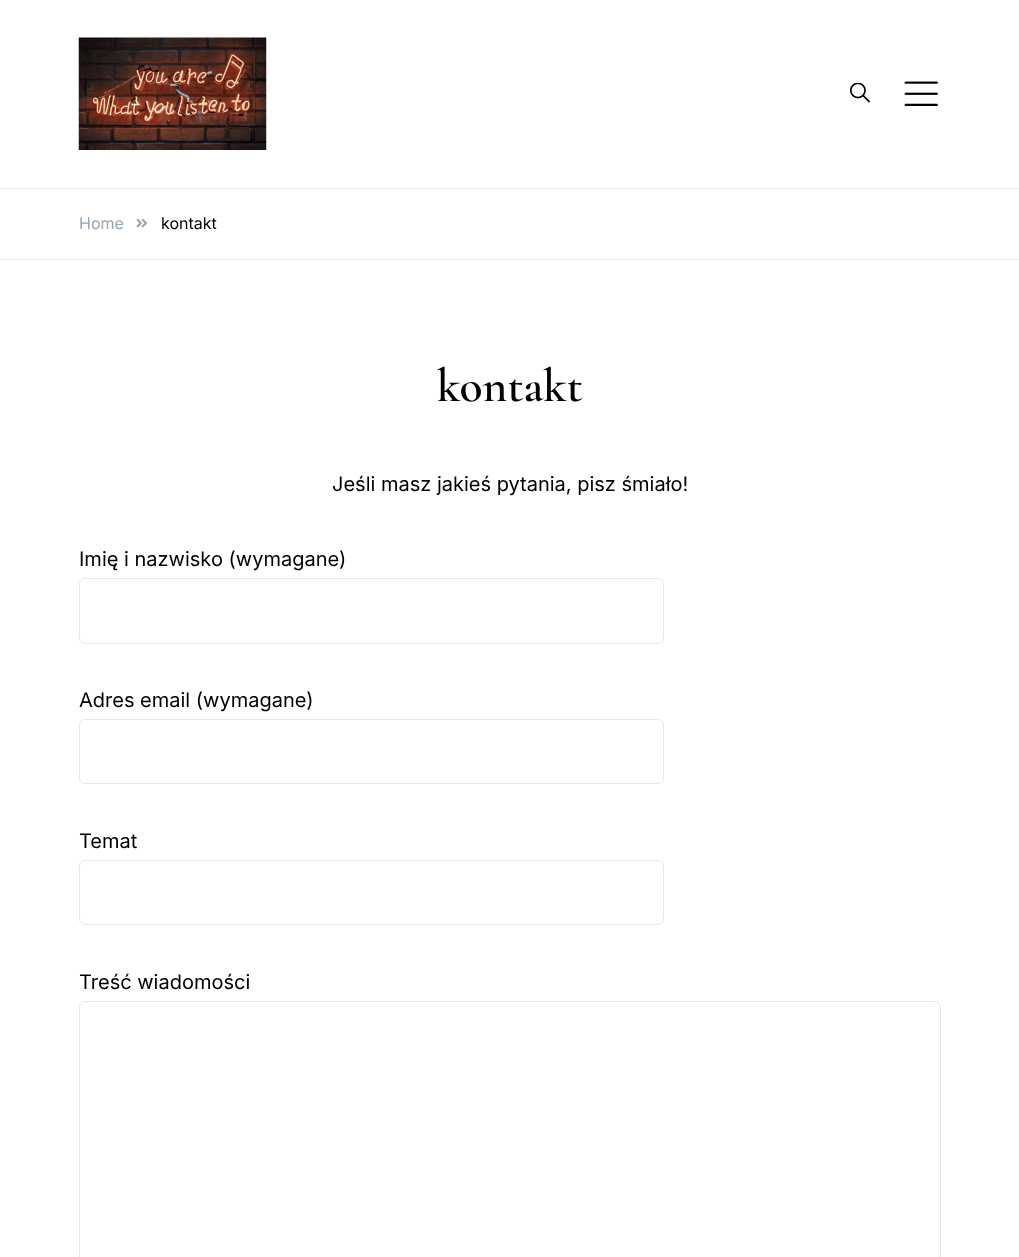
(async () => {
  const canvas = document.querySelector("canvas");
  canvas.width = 1019;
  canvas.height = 1257;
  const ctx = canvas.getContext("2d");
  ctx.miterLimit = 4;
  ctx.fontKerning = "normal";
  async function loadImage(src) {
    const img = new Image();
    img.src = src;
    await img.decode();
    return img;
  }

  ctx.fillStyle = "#ffffff";
  ctx.fillRect(0, 0, 1019, 1257);
  ctx.fillStyle = "#e4e6ea";
  ctx.fillRect(0, 188, 1019, 1);
  ctx.drawImage(await loadImage("img/1.png"), 78, 37, 189, 113);
  ctx.drawImage(await loadImage("img/2.png"), 850, 83, 20, 20);
  ctx.drawImage(await loadImage("img/3.png"), 904, 81, 34, 25);
  ctx.fillRect(0, 259, 1019, 1);
  ctx.drawImage(await loadImage("img/4.png"), 136, 218, 12, 10);
  ctx.beginPath();
  ctx.roundRect(79.5, 578.5, 584, 65, 5.5);
  ctx.strokeStyle = "#e4e6ea";
  ctx.stroke();
  ctx.beginPath();
  ctx.roundRect(79.5, 719.5, 584, 64, 5.5);
  ctx.stroke();
  ctx.beginPath();
  ctx.roundRect(79.5, 860.5, 584, 64, 5.5);
  ctx.stroke();
  ctx.beginPath();
  ctx.roundRect(79.5, 1001.5, 861, 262, 5.5);
  ctx.stroke();
  ctx.font = "16px Inter";
  ctx.fillStyle = "#97a5b1";
  ctx.fillText("Home", 79, 229);
  ctx.fillStyle = "#000000";
  ctx.fillText("kontakt", 161, 229);
  ctx.font = "600 47.5px Cormorant Garamond";
  ctx.fillText("kontakt", 437, 401);
  ctx.font = "20px Inter";
  for (const [text, x, y] of [
    ["Jeśli masz jakieś pytania, pisz śmiało!", 332, 491],
    ["Imię i nazwisko (wymagane)", 79, 566],
    ["Adres email (wymagane)", 79, 707],
    ["Temat", 79, 848],
    ["Treść wiadomości", 79, 989],
  ]) {
    ctx.fillText(text, x, y);
  }
})();
